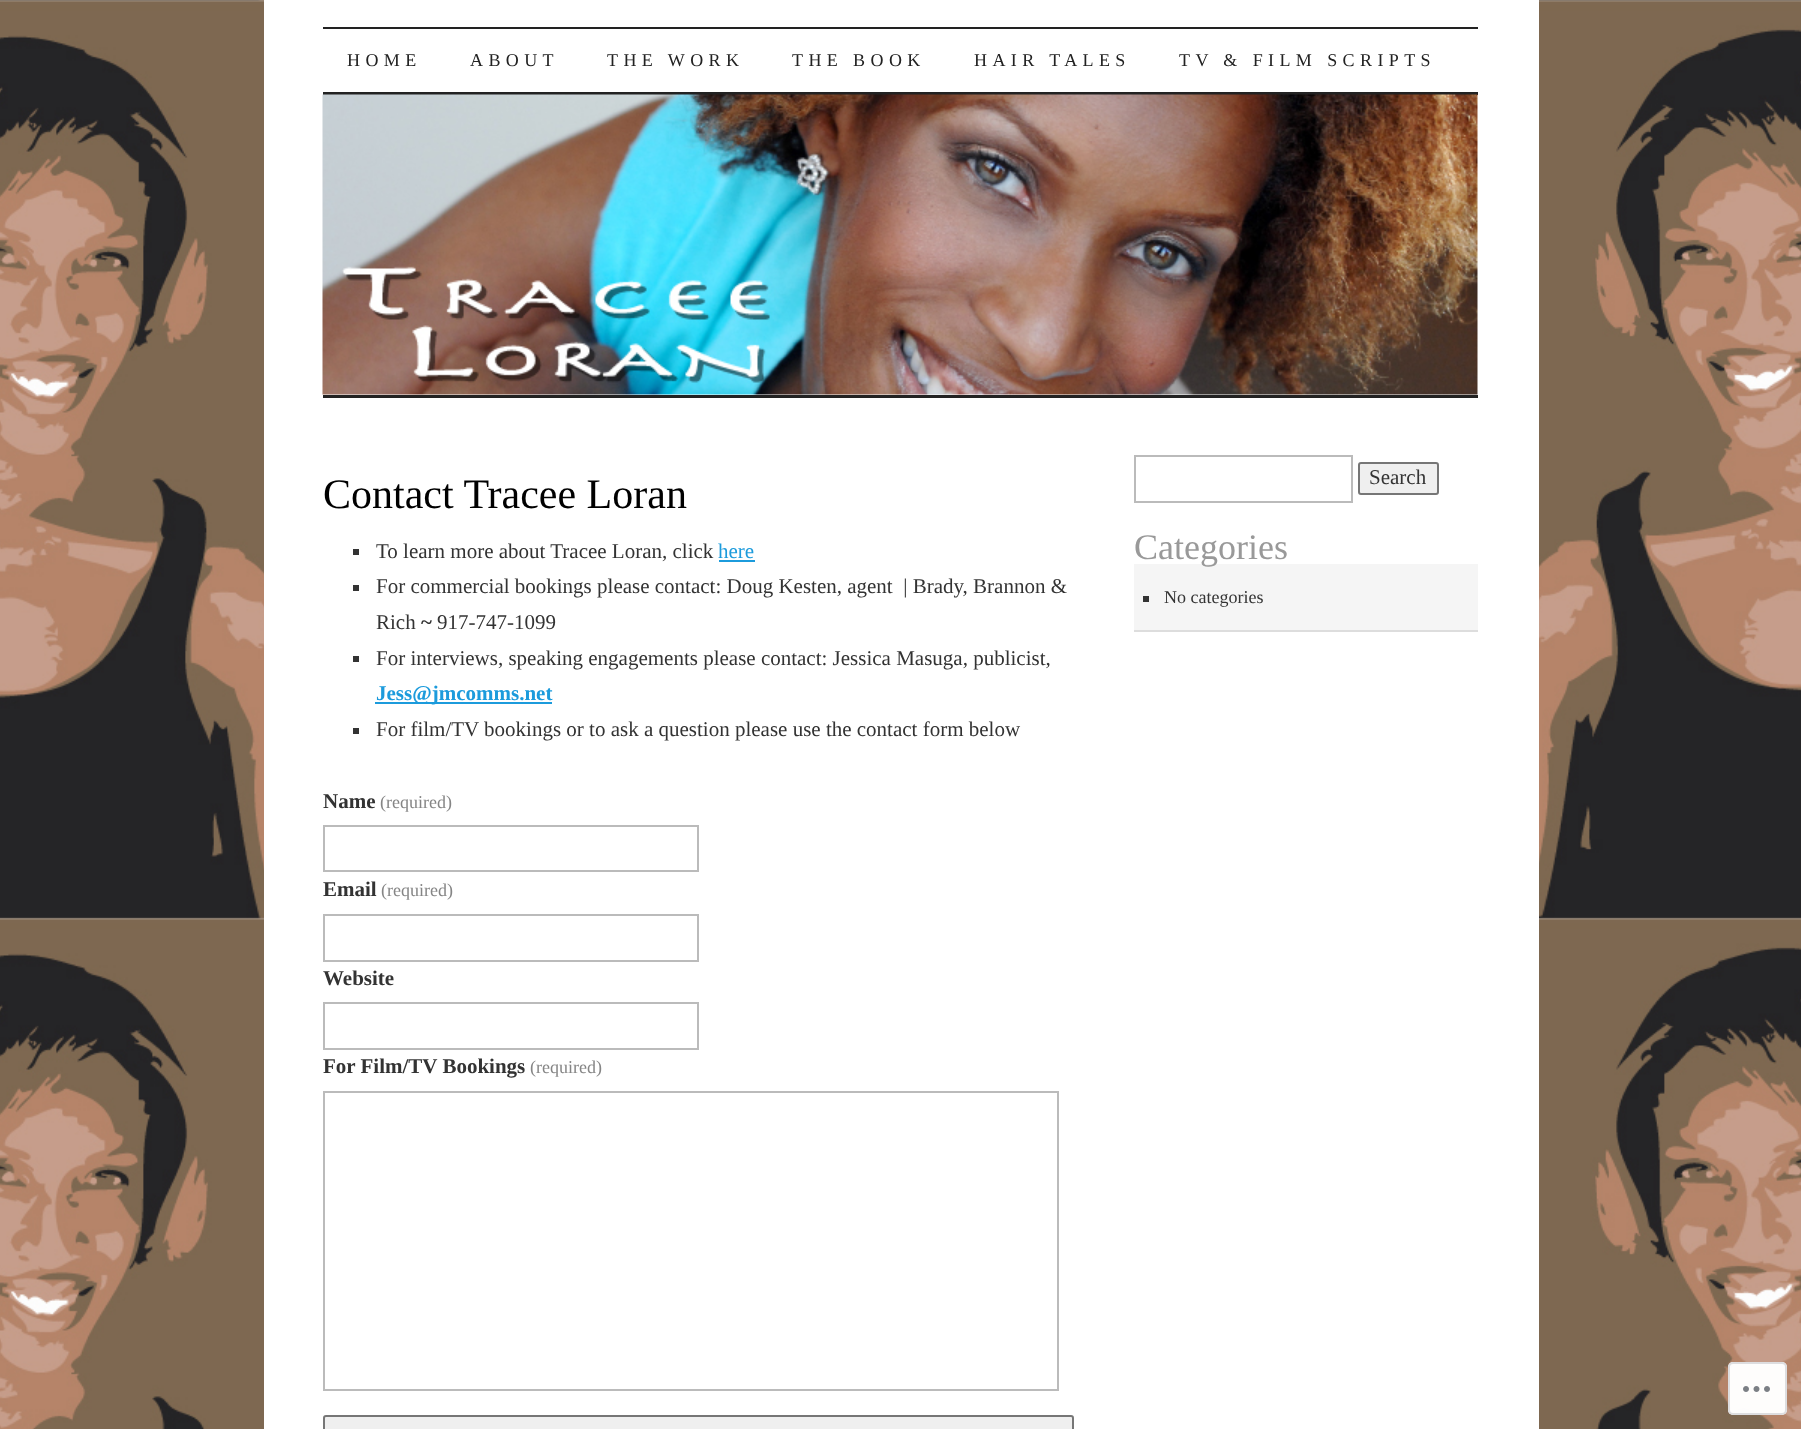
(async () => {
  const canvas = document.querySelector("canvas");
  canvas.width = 1801;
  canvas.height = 1429;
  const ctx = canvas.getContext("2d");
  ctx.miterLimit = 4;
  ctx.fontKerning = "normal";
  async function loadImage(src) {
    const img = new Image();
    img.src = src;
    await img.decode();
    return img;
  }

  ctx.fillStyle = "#ffffff";
  ctx.fillRect(0, 0, 1801, 1429);
  ctx.drawImage(await loadImage("img/1.png"), 0, 0, 1801, 1429);
  for (const [x, y, w, h, color] of [
    [264, 0, 1275, 1429, "#ffffff"],
    [323, 27, 1155, 2, "#222222"],
    [323, 92, 1155, 3, "#222222"],
  ]) {
    ctx.fillStyle = color;
    ctx.fillRect(x, y, w, h);
  }
  ctx.drawImage(await loadImage("img/2.png"), 322, 94, 1156, 301);
  for (const [x, y, w, h, color] of [
    [323, 395, 1155, 3, "#222222"],
    [353, 549, 6, 6, "#333333"],
    [719, 560, 36, 2, "#1c9bdc"],
    [353, 585, 6, 6, "#333333"],
    [353, 656, 6, 6, "#333333"],
    [375, 702, 177, 2, "#1c9bdc"],
    [353, 728, 6, 6, "#333333"],
  ]) {
    ctx.fillStyle = color;
    ctx.fillRect(x, y, w, h);
  }
  ctx.strokeStyle = "#bbbbbb";
  ctx.lineWidth = 2;
  ctx.strokeRect(324, 826, 374, 45);
  ctx.strokeRect(324, 915, 374, 46);
  ctx.strokeRect(324, 1003, 374, 46);
  ctx.strokeRect(324, 1092, 734, 298);
  ctx.fillStyle = "#efefef";
  ctx.beginPath();
  ctx.roundRect(324, 1416, 749, 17, 2);
  ctx.fill();
  ctx.strokeStyle = "#767676";
  ctx.stroke();
  ctx.strokeStyle = "#bbbbbb";
  ctx.strokeRect(1135, 456, 217, 46);
  ctx.beginPath();
  ctx.roundRect(1359, 463, 79, 31, 2);
  ctx.fill();
  ctx.strokeStyle = "#767676";
  ctx.stroke();
  for (const [x, y, w, h, color] of [
    [1134, 564, 344, 66, "#f5f5f5"],
    [1134, 630, 344, 2, "#dddddd"],
    [1143, 596, 6, 6, "#333333"],
  ]) {
    ctx.fillStyle = color;
    ctx.fillRect(x, y, w, h);
  }
  ctx.fillStyle = "rgba(255, 255, 255, 0.98)";
  ctx.beginPath();
  ctx.roundRect(1728, 1362, 59, 53, 5);
  ctx.fill();
  ctx.beginPath();
  ctx.roundRect(1729, 1363, 57, 51, 4);
  ctx.strokeStyle = "rgba(220, 220, 222, 0.98)";
  ctx.stroke();
  ctx.drawImage(await loadImage("img/3.png"), 1743, 1386, 27, 6);
  ctx.letterSpacing = "5.4px";
  ctx.font = "18px Liberation Serif";
  ctx.fillStyle = "#222222";
  for (const [text, x, y] of [
    ["HOME", 347, 66],
    ["ABOUT", 470, 66],
    ["THE WORK", 607, 66],
    ["THE BOOK", 792, 66],
    ["HAIR TALES", 974, 66],
    ["TV & FILM SCRIPTS", 1179, 66],
  ]) {
    ctx.fillText(text, x, y);
  }
  ctx.letterSpacing = "0px";
  ctx.font = "42px Liberation Serif";
  ctx.fillStyle = "#000000";
  ctx.fillText("Contact Tracee Loran", 323, 508);
  ctx.font = "21px Liberation Serif";
  ctx.fillStyle = "#333333";
  ctx.fillText("To learn more about Tracee Loran, click", 376, 558);
  ctx.fillStyle = "#1c9bdc";
  ctx.fillText("here", 718, 558);
  ctx.fillStyle = "#333333";
  ctx.fillText("For commercial bookings please contact: Doug Kesten, agent  | Brady, Brannon &", 376, 593);
  ctx.fillText("Rich", 376, 629);
  ctx.font = "bold 21px Liberation Serif";
  ctx.fillText("~", 421, 629);
  ctx.font = "21px Liberation Serif";
  ctx.fillText("917-747-1099", 437, 629);
  ctx.fillText("For interviews, speaking engagements please contact: Jessica Masuga, publicist,", 376, 665);
  ctx.font = "bold 21px Liberation Serif";
  ctx.fillStyle = "#1c9bdc";
  ctx.fillText("Jess@jmcomms.net", 376, 700);
  ctx.font = "21px Liberation Serif";
  ctx.fillStyle = "#333333";
  ctx.fillText("For film/TV bookings or to ask a question please use the contact form below", 376, 736);
  ctx.font = "bold 21px Liberation Serif";
  ctx.fillText("Name", 323, 808);
  ctx.font = "18px Liberation Serif";
  ctx.fillStyle = "#858585";
  ctx.fillText("(required)", 380, 808);
  ctx.font = "bold 21px Liberation Serif";
  ctx.fillStyle = "#333333";
  ctx.fillText("Email", 323, 896);
  ctx.font = "18px Liberation Serif";
  ctx.fillStyle = "#858585";
  ctx.fillText("(required)", 381, 896);
  ctx.font = "bold 21px Liberation Serif";
  ctx.fillStyle = "#333333";
  ctx.fillText("Website", 323, 985);
  ctx.fillText("For Film/TV Bookings", 323, 1073);
  ctx.font = "18px Liberation Serif";
  ctx.fillStyle = "#858585";
  ctx.fillText("(required)", 530, 1073);
  ctx.font = "21px Liberation Serif";
  ctx.fillStyle = "#333333";
  ctx.fillText("Search", 1369, 484);
  ctx.font = "36px Liberation Serif";
  ctx.fillStyle = "#999999";
  ctx.fillText("Categories", 1134, 559);
  ctx.font = "18px Liberation Serif";
  ctx.fillStyle = "#333333";
  ctx.fillText("No categories", 1164, 603);
})();
